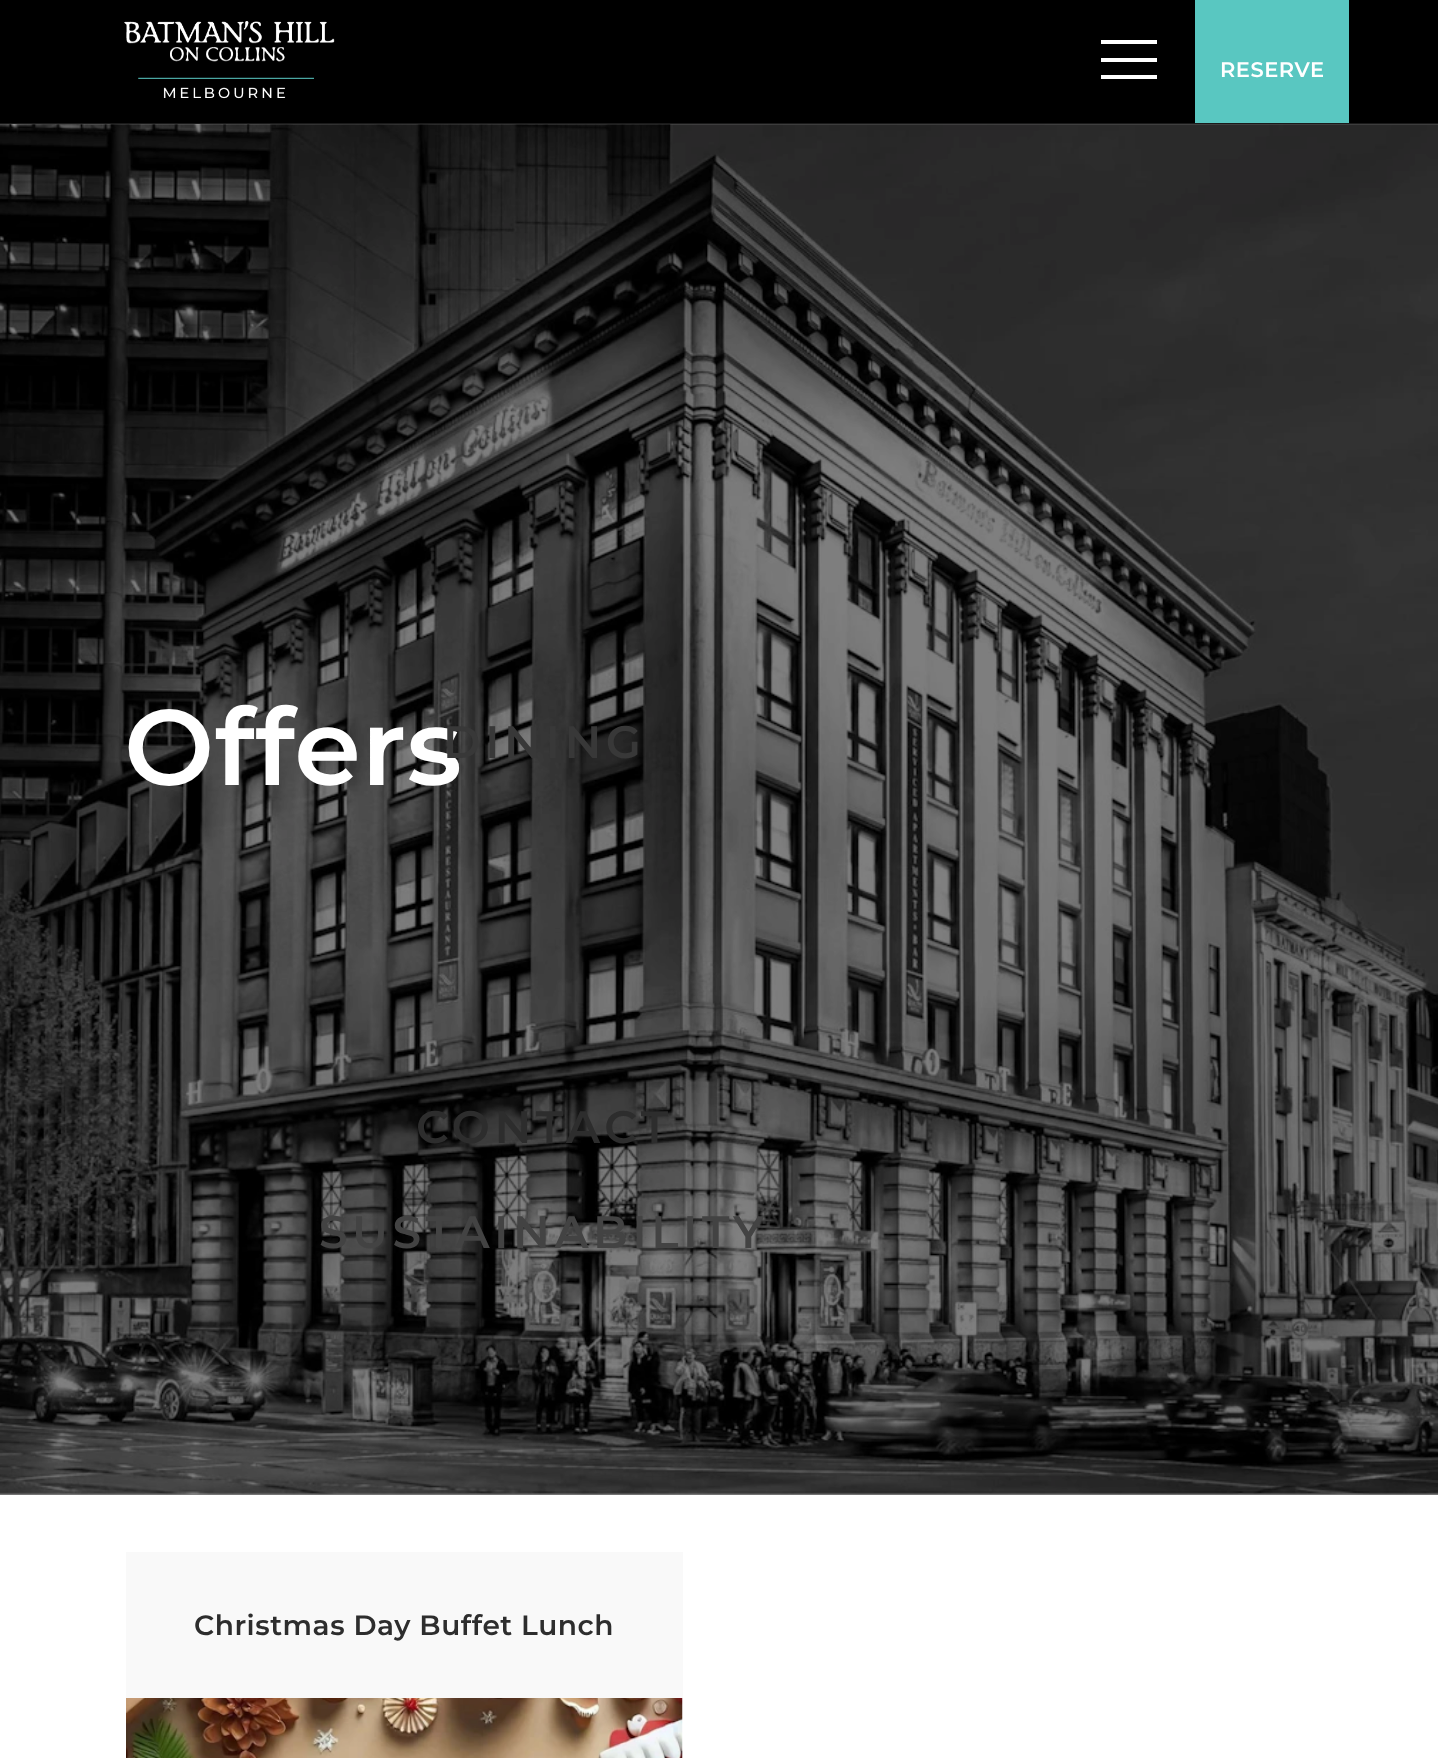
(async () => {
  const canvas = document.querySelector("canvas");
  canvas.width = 1438;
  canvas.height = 1758;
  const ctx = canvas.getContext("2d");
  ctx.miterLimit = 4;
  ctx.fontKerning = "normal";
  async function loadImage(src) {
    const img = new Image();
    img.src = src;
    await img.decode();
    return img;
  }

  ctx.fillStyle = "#ffffff";
  ctx.fillRect(0, 0, 1438, 1758);
  ctx.fillStyle = "#808080";
  ctx.fillRect(0, 1494, 1438, 1);
  ctx.drawImage(await loadImage("img/1.png"), 0, 124, 1438, 1371);
  ctx.fillStyle = "#000000";
  ctx.fillRect(0, 0, 1438, 124);
  ctx.fillStyle = "rgba(255, 255, 255, 0.1)";
  ctx.fillRect(0, 123, 1438, 2);
  ctx.drawImage(await loadImage("img/2.png"), 124, 21, 211, 78);
  for (const [x, y, w, h, color] of [
    [1195, 0, 154, 123, "#59c7c1"],
    [1101, 40, 56, 4, "#ffffff"],
    [1101, 58, 56, 4, "#ffffff"],
    [1101, 75, 56, 4, "#ffffff"],
    [126, 1552, 557, 146, "#f9f9f9"],
  ]) {
    ctx.fillStyle = color;
    ctx.fillRect(x, y, w, h);
  }
  ctx.drawImage(await loadImage("img/3.png"), 126, 1698, 557, 60);
  ctx.letterSpacing = "0.55px";
  ctx.font = "600 107px Montserrat";
  ctx.fillStyle = "#ffffff";
  ctx.fillText("Offers", 124, 785);
  ctx.letterSpacing = "0.5px";
  ctx.font = "600 21px Montserrat";
  ctx.fillText("RESERVE", 1220, 77);
  ctx.letterSpacing = "4.5px";
  ctx.font = "600 45.5px Montserrat";
  ctx.fillStyle = "#383838";
  ctx.fillText("DINING", 443, 758);
  ctx.fillStyle = "#2d2d2d";
  ctx.fillText("CONTACT", 416, 1143);
  ctx.fillStyle = "#434343";
  ctx.fillText("SUSTAINABILITY", 319, 1248);
  ctx.letterSpacing = "0.55px";
  ctx.font = "600 28px Montserrat";
  ctx.fillStyle = "#2d2d2d";
  ctx.fillText("Christmas Day Buffet Lunch", 194, 1635);
})();
